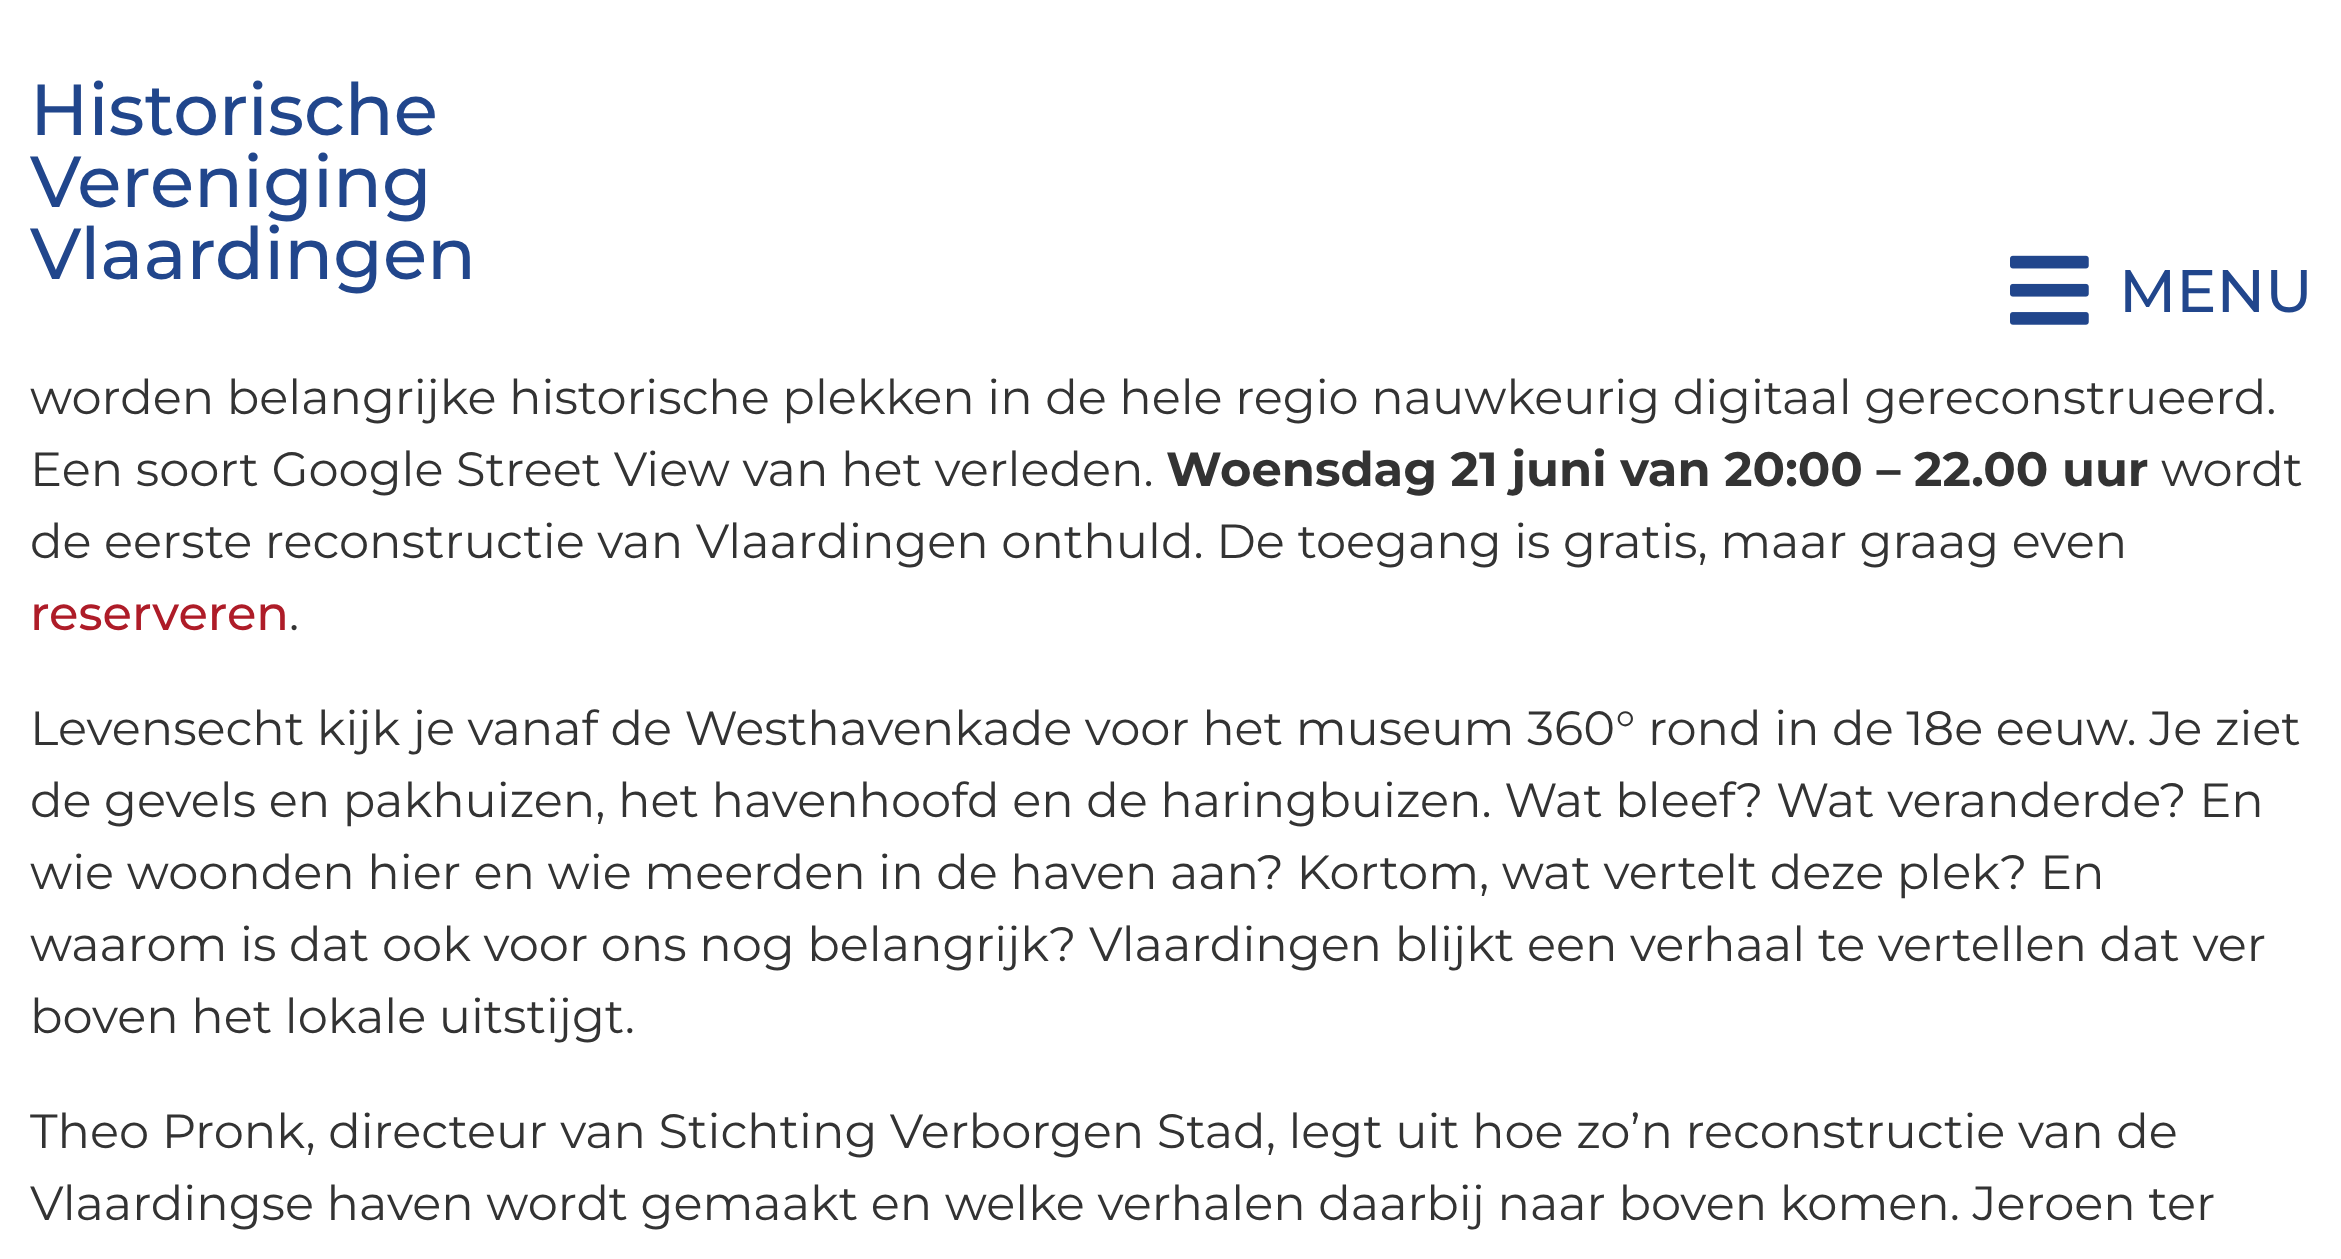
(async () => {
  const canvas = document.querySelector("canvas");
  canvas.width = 2341;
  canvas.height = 1259;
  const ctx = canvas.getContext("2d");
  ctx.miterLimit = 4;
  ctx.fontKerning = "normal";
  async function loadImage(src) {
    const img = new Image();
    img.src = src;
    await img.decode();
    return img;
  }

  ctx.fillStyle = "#ffffff";
  ctx.fillRect(0, 0, 2341, 1259);
  ctx.drawImage(await loadImage("img/1.png"), 2010, 255, 79, 70);
  ctx.font = "500 72px Montserrat";
  ctx.fillStyle = "#21468c";
  for (const [text, x, y] of [
    ["Historische", 30, 135],
    ["Vereniging", 30, 207],
    ["Vlaardingen", 30, 279],
  ]) {
    ctx.fillText(text, x, y);
  }
  ctx.font = "500 60px Montserrat";
  ctx.fillText("MENU", 2119, 312);
  ctx.font = "48px Montserrat";
  ctx.fillStyle = "#333333";
  ctx.fillText("worden belangrijke historische plekken in de hele regio nauwkeurig digitaal gereconstrueerd.", 30, 414);
  ctx.fillText("Een soort Google Street View van het verleden.", 30, 486);
  ctx.font = "bold 48px Montserrat";
  ctx.fillText("W", 1166, 486);
  ctx.fillText("oensdag 21 juni van 20:00 – 22.00 uur", 1220, 486);
  ctx.font = "48px Montserrat";
  ctx.fillText("wordt", 2161, 486);
  ctx.fillText("de eerste reconstructie van Vlaardingen onthuld. De toegang is gratis, maar graag even", 30, 558);
  ctx.font = "500 48px Montserrat";
  ctx.fillStyle = "#ae1c28";
  ctx.fillText("reserveren", 30, 630);
  ctx.font = "48px Montserrat";
  ctx.fillStyle = "#333333";
  for (const [text, x, y] of [
    [".", 289, 630],
    ["Levensecht kijk je vanaf de Westhavenkade voor het museum 360° rond in de 18e eeuw. Je ziet", 30, 745],
    ["de gevels en pakhuizen, het havenhoofd en de haringbuizen. Wat bleef? Wat veranderde? En", 30, 817],
    ["wie woonden hier en wie meerden in de haven aan? Kortom, wat vertelt deze plek? En", 30, 889],
    ["waarom is dat ook voor ons nog belangrijk? Vlaardingen blijkt een verhaal te vertellen dat ver", 30, 961],
    ["boven het lokale uitstijgt.", 30, 1033],
    ["Theo Pronk, directeur van Stichting Verborgen Stad, legt uit hoe zo’n reconstructie van de", 30, 1148],
    ["Vlaardingse haven wordt gemaakt en welke verhalen daarbij naar boven komen. Jeroen ter", 30, 1220],
  ]) {
    ctx.fillText(text, x, y);
  }
})();
